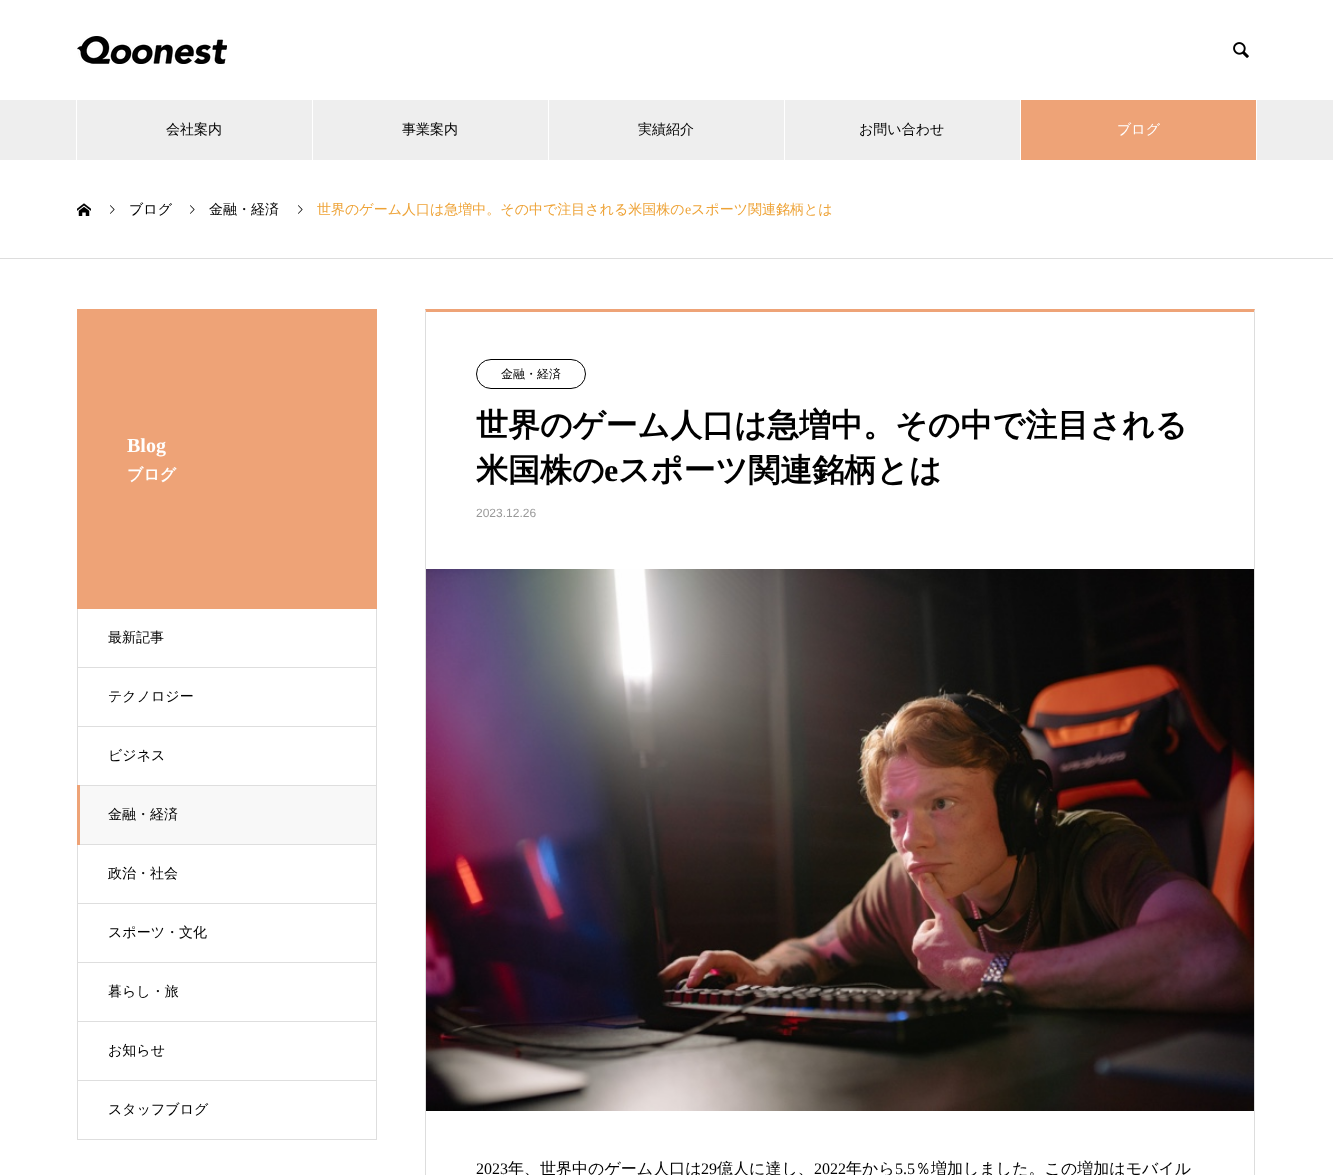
(async () => {
  const canvas = document.querySelector("canvas");
  canvas.width = 1333;
  canvas.height = 1175;
  const ctx = canvas.getContext("2d");
  ctx.miterLimit = 4;
  ctx.fontKerning = "normal";
  async function loadImage(src) {
    const img = new Image();
    img.src = src;
    await img.decode();
    return img;
  }
  let path;

  ctx.fillStyle = "#ffffff";
  ctx.fillRect(0, 0, 1333, 1175);
  ctx.drawImage(await loadImage("img/1.png"), 77, 36, 150, 28);
  ctx.drawImage(await loadImage("img/2.png"), 1233, 42, 16, 16);
  for (const [x, y, w, h, color] of [
    [0, 100, 1333, 60, "#eeeeee"],
    [312, 100, 1, 60, "#ffffff"],
    [76, 100, 1, 60, "#ffffff"],
    [548, 100, 1, 60, "#ffffff"],
    [784, 100, 1, 60, "#ffffff"],
    [1020, 100, 1, 60, "#ffffff"],
    [1256, 100, 1, 60, "#ffffff"],
    [1021, 100, 235, 60, "#eea377"],
  ]) {
    ctx.fillStyle = color;
    ctx.fillRect(x, y, w, h);
  }
  ctx.drawImage(await loadImage("img/3.png"), 77, 203, 14, 13);
  ctx.drawImage(await loadImage("img/4.png"), 110, 205, 5, 9);
  ctx.drawImage(await loadImage("img/4.png"), 190, 205, 5, 9);
  ctx.drawImage(await loadImage("img/4.png"), 298, 205, 5, 9);
  ctx.fillStyle = "#dddddd";
  ctx.fillRect(0, 258, 1333, 1);
  ctx.fillStyle = "#eea377";
  ctx.fillRect(77, 309, 300, 300);
  ctx.save();
  ctx.beginPath();
  ctx.rect(77, 609, 300, 531);
  ctx.clip();
  ctx.strokeStyle = "#dedede";
  ctx.strokeRect(77.5, 608.5, 299, 59);
  ctx.restore();
  ctx.strokeStyle = "#dedede";
  ctx.strokeRect(77.5, 667.5, 299, 59);
  ctx.strokeRect(77.5, 726.5, 299, 59);
  ctx.fillStyle = "#f8f8f8";
  ctx.fillRect(80, 786, 296, 58);
  ctx.strokeRect(77.5, 785.5, 299, 59);
  ctx.strokeRect(77.5, 844.5, 299, 59);
  ctx.fillStyle = "#eea377";
  ctx.fillRect(77, 785, 3, 60);
  ctx.strokeRect(77.5, 903.5, 299, 59);
  ctx.strokeRect(77.5, 962.5, 299, 59);
  ctx.strokeRect(77.5, 1021.5, 299, 59);
  ctx.strokeRect(77.5, 1080.5, 299, 59);
  path = new Path2D("M425 309H1255L1254 312H426Z");
  ctx.fill(path);
  ctx.fillStyle = "#dddddd";
  path = new Path2D("M1255 309V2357L1254 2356V312Z");
  ctx.fill(path);
  path = new Path2D("M425 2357V309L426 312V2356Z");
  ctx.fill(path);
  ctx.beginPath();
  ctx.roundRect(476.5, 359.5, 109, 29, 14.5);
  ctx.strokeStyle = "#000000";
  ctx.stroke();
  ctx.drawImage(await loadImage("img/5.png"), 426, 569, 828, 542);
  ctx.font = "500 14px WenQuanYi Zen Hei";
  ctx.fillStyle = "#000000";
  for (const [text, x, y] of [
    ["会社案内", 166, 134],
    ["事業案内", 402, 134],
    ["実績紹介", 638, 134],
    ["お問い合わせ", 859, 134],
  ]) {
    ctx.fillText(text, x, y);
  }
  ctx.fillStyle = "#ffffff";
  ctx.fillText("ブログ", 1117, 134);
  ctx.fillStyle = "#000000";
  ctx.fillText("ブログ", 129, 214);
  ctx.fillText("金融・経済", 209, 214);
  ctx.fillStyle = "#eea337";
  ctx.fillText("世界のゲーム人口は急増中。その中で注目される米国株の", 317, 214);
  ctx.font = "14px Liberation Serif";
  ctx.fillText("e", 685, 214);
  ctx.font = "500 14px WenQuanYi Zen Hei";
  ctx.fillText("スポーツ関連銘柄とは", 691, 214);
  ctx.font = "bold 20px Liberation Serif";
  ctx.fillStyle = "#ffffff";
  ctx.fillText("Blog", 127, 452);
  ctx.font = "bold 16px WenQuanYi Zen Hei";
  ctx.fillText("ブログ", 127, 480);
  ctx.font = "500 14px WenQuanYi Zen Hei";
  ctx.fillStyle = "#000000";
  for (const [text, x, y] of [
    ["最新記事", 108, 642],
    ["テクノロジー", 108, 701],
    ["ビジネス", 108, 760],
    ["金融・経済", 108, 819],
    ["政治・社会", 108, 878],
    ["スポーツ・文化", 108, 937],
    ["暮らし・旅", 108, 996],
    ["お知らせ", 108, 1055],
    ["スタッフブログ", 108, 1114],
  ]) {
    ctx.fillText(text, x, y);
  }
  ctx.font = "500 12px WenQuanYi Zen Hei";
  ctx.fillText("金融・経済", 501, 378);
  ctx.font = "bold 32px WenQuanYi Zen Hei";
  ctx.fillText("世界のゲーム人口は急増中。その中で注目される", 476, 436);
  ctx.fillText("米国株の", 476, 481);
  ctx.font = "bold 32px Liberation Serif";
  ctx.fillText("e", 604, 481);
  ctx.font = "bold 32px WenQuanYi Zen Hei";
  ctx.fillText("スポーツ関連銘柄とは", 618, 481);
  ctx.font = "12px Liberation Sans";
  ctx.fillStyle = "#999999";
  ctx.fillText("2023.12.26", 476, 517);
  ctx.font = "16px Liberation Serif";
  ctx.fillStyle = "#000000";
  ctx.fillText("2023", 476, 1174);
  ctx.font = "500 16px WenQuanYi Zen Hei";
  ctx.fillText("年、世界中のゲーム人口は", 508, 1174);
  ctx.font = "16px Liberation Serif";
  ctx.fillText("29", 701, 1174);
  ctx.font = "500 16px WenQuanYi Zen Hei";
  ctx.fillText("億人に達し、", 717, 1174);
  ctx.font = "16px Liberation Serif";
  ctx.fillText("2022", 814, 1174);
  ctx.font = "500 16px WenQuanYi Zen Hei";
  ctx.fillText("年から", 846, 1174);
  ctx.font = "16px Liberation Serif";
  ctx.fillText("5.5", 895, 1174);
  ctx.font = "500 16px WenQuanYi Zen Hei";
  ctx.fillText("％増加しました。この増加はモバイル", 915, 1174);
})();
